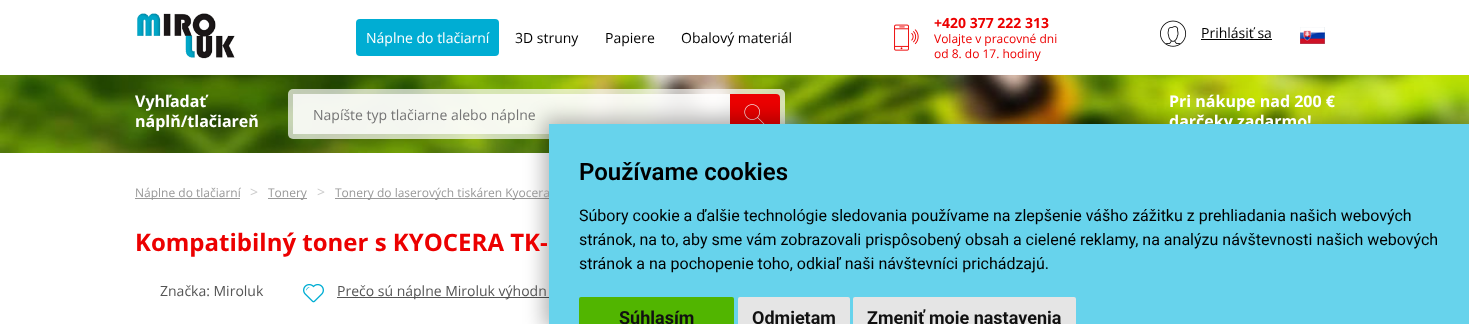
(async () => {
  const canvas = document.querySelector("canvas");
  canvas.width = 1469;
  canvas.height = 324;
  const ctx = canvas.getContext("2d");
  ctx.miterLimit = 4;
  ctx.fontKerning = "normal";
  async function loadImage(src) {
    const img = new Image();
    img.src = src;
    await img.decode();
    return img;
  }

  ctx.fillStyle = "#ffffff";
  ctx.fillRect(0, 0, 1469, 324);
  ctx.drawImage(await loadImage("img/1.png"), 137, 13, 98, 46);
  ctx.fillStyle = "#00add3";
  ctx.beginPath();
  ctx.roundRect(356, 19, 143, 37, 4);
  ctx.fill();
  ctx.drawImage(await loadImage("img/2.png"), 894, 24, 25, 27);
  ctx.drawImage(await loadImage("img/3.png"), 1160, 20, 27, 27);
  ctx.fillStyle = "#000000";
  ctx.fillRect(1201, 39, 71, 1);
  ctx.drawImage(await loadImage("img/4.png"), 1300, 27, 25, 17);
  ctx.drawImage(await loadImage("img/5.png"), 0, 75, 1469, 78);
  ctx.fillStyle = "rgba(255, 255, 255, 0.7)";
  ctx.beginPath();
  ctx.roundRect(288, 89, 497, 50, 5);
  ctx.fill();
  ctx.fillStyle = "rgba(255, 255, 255, 0.8)";
  ctx.fillRect(293, 94, 437, 40);
  ctx.fillStyle = "#ec0000";
  ctx.beginPath();
  ctx.roundRect(730, 94, 50, 40, [0, 4, 4, 0]);
  ctx.fill();
  ctx.drawImage(await loadImage("img/6.png"), 744, 104, 21, 20);
  for (const [x, y, w, h, color] of [
    [135, 198, 105, 1, "#999999"],
    [268, 198, 39, 1, "#999999"],
    [335, 198, 215, 1, "#999999"],
    [337, 297, 212, 1, "#555555"],
  ]) {
    ctx.fillStyle = color;
    ctx.fillRect(x, y, w, h);
  }
  ctx.fillStyle = "rgba(0, 0, 0, 0.3)";
  ctx.filter = "blur(10px)";
  ctx.beginPath();
  ctx.rect(544, 119, 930, 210);
  ctx.fill();
  ctx.filter = "none";
  ctx.drawImage(await loadImage("img/7.png"), 303, 284, 21, 19);
  ctx.font = "14px Open Sans";
  ctx.fillStyle = "#ffffff";
  ctx.fillText("Náplne do tlačiarní", 366, 43);
  ctx.fillStyle = "#000000";
  for (const [text, x, y] of [
    ["3D struny", 515, 43],
    ["Papiere", 605, 43],
    ["Obalový materiál", 681, 43],
  ]) {
    ctx.fillText(text, x, y);
  }
  ctx.font = "bold 14px Open Sans";
  ctx.fillStyle = "#ec0000";
  ctx.fillText("+420 377 222 313", 934, 28);
  ctx.font = "12px Open Sans";
  ctx.fillText("Volajte v pracovné dni", 934, 43);
  ctx.fillText("od 8. do 17. hodiny", 934, 58);
  ctx.font = "14px Open Sans";
  ctx.fillStyle = "#000000";
  ctx.fillText("Prihlásiť sa", 1201, 38);
  ctx.font = "bold 16px Open Sans";
  ctx.fillStyle = "#ffffff";
  ctx.fillText("Vyhľadať", 135, 107);
  ctx.fillText("náplň/tlačiareň", 135, 127);
  ctx.font = "14px Open Sans";
  ctx.fillStyle = "#757575";
  ctx.fillText("Napíšte typ tlačiarne alebo náplne", 313, 120);
  ctx.font = "bold 16px Open Sans";
  ctx.fillStyle = "#ffffff";
  ctx.fillText("Pri nákupe nad 200 €", 1169, 107);
  ctx.fillText("darčeky zadarmo!", 1169, 127);
  ctx.font = "12px Open Sans";
  ctx.fillStyle = "#999999";
  ctx.fillText("Náplne do tlačiarní", 135, 197);
  ctx.font = "14px Open Sans";
  ctx.fillStyle = "#cccccc";
  ctx.fillText(">", 250, 197);
  ctx.font = "12px Open Sans";
  ctx.fillStyle = "#999999";
  ctx.fillText("Tonery", 268, 197);
  ctx.font = "14px Open Sans";
  ctx.fillStyle = "#cccccc";
  ctx.fillText(">", 317, 197);
  ctx.font = "12px Open Sans";
  ctx.fillStyle = "#999999";
  ctx.fillText("Tonery do laserových tiskáren Kyocera", 335, 197);
  ctx.fillStyle = "#67d3ec";
  ctx.fillRect(549, 124, 920, 200);
  ctx.font = "600 24px Roboto";
  ctx.fillStyle = "#000000";
  ctx.fillText("Používame cookies", 579, 180);
  ctx.font = "16px Roboto";
  for (const [text, x, y] of [
    ["Súbory cookie a ďalšie technológie sledovania používame na zlepšenie vášho zážitku z prehliadania našich webových", 579, 221],
    ["stránok, na to, aby sme vám zobrazovali prispôsobený obsah a cielené reklamy, na analýzu návštevnosti našich webových", 579, 245],
    ["stránok a na pochopenie toho, odkiaľ naši návštevníci prichádzajú.", 579, 269],
  ]) {
    ctx.fillText(text, x, y);
  }
  ctx.fillStyle = "#51b500";
  ctx.beginPath();
  ctx.roundRect(579, 297, 155, 27, [2, 2, 0, 0]);
  ctx.fill();
  ctx.font = "bold 18px Roboto";
  ctx.fillStyle = "#111111";
  ctx.fillText("Súhlasím", 619, 324);
  ctx.fillStyle = "#e5e5e5";
  ctx.beginPath();
  ctx.roundRect(738, 297, 112, 27, [2, 2, 0, 0]);
  ctx.fill();
  ctx.fillStyle = "#111111";
  ctx.fillText("Odmietam", 752, 324);
  ctx.fillStyle = "#e5e5e5";
  ctx.beginPath();
  ctx.roundRect(853, 297, 223, 27, [2, 2, 0, 0]);
  ctx.fill();
  ctx.fillStyle = "#111111";
  ctx.fillText("Zmeniť moje nastavenia", 867, 324);
  ctx.font = "bold 24px Open Sans";
  ctx.fillStyle = "#ec0000";
  ctx.fillText("Kompatibilný toner s KYOCERA TK-", 135, 251);
  ctx.font = "14px Open Sans";
  ctx.fillStyle = "#555555";
  ctx.fillText("Značka: Miroluk", 160, 296);
  ctx.fillText("Prečo sú náplne Miroluk výhodn", 337, 296);
})();
